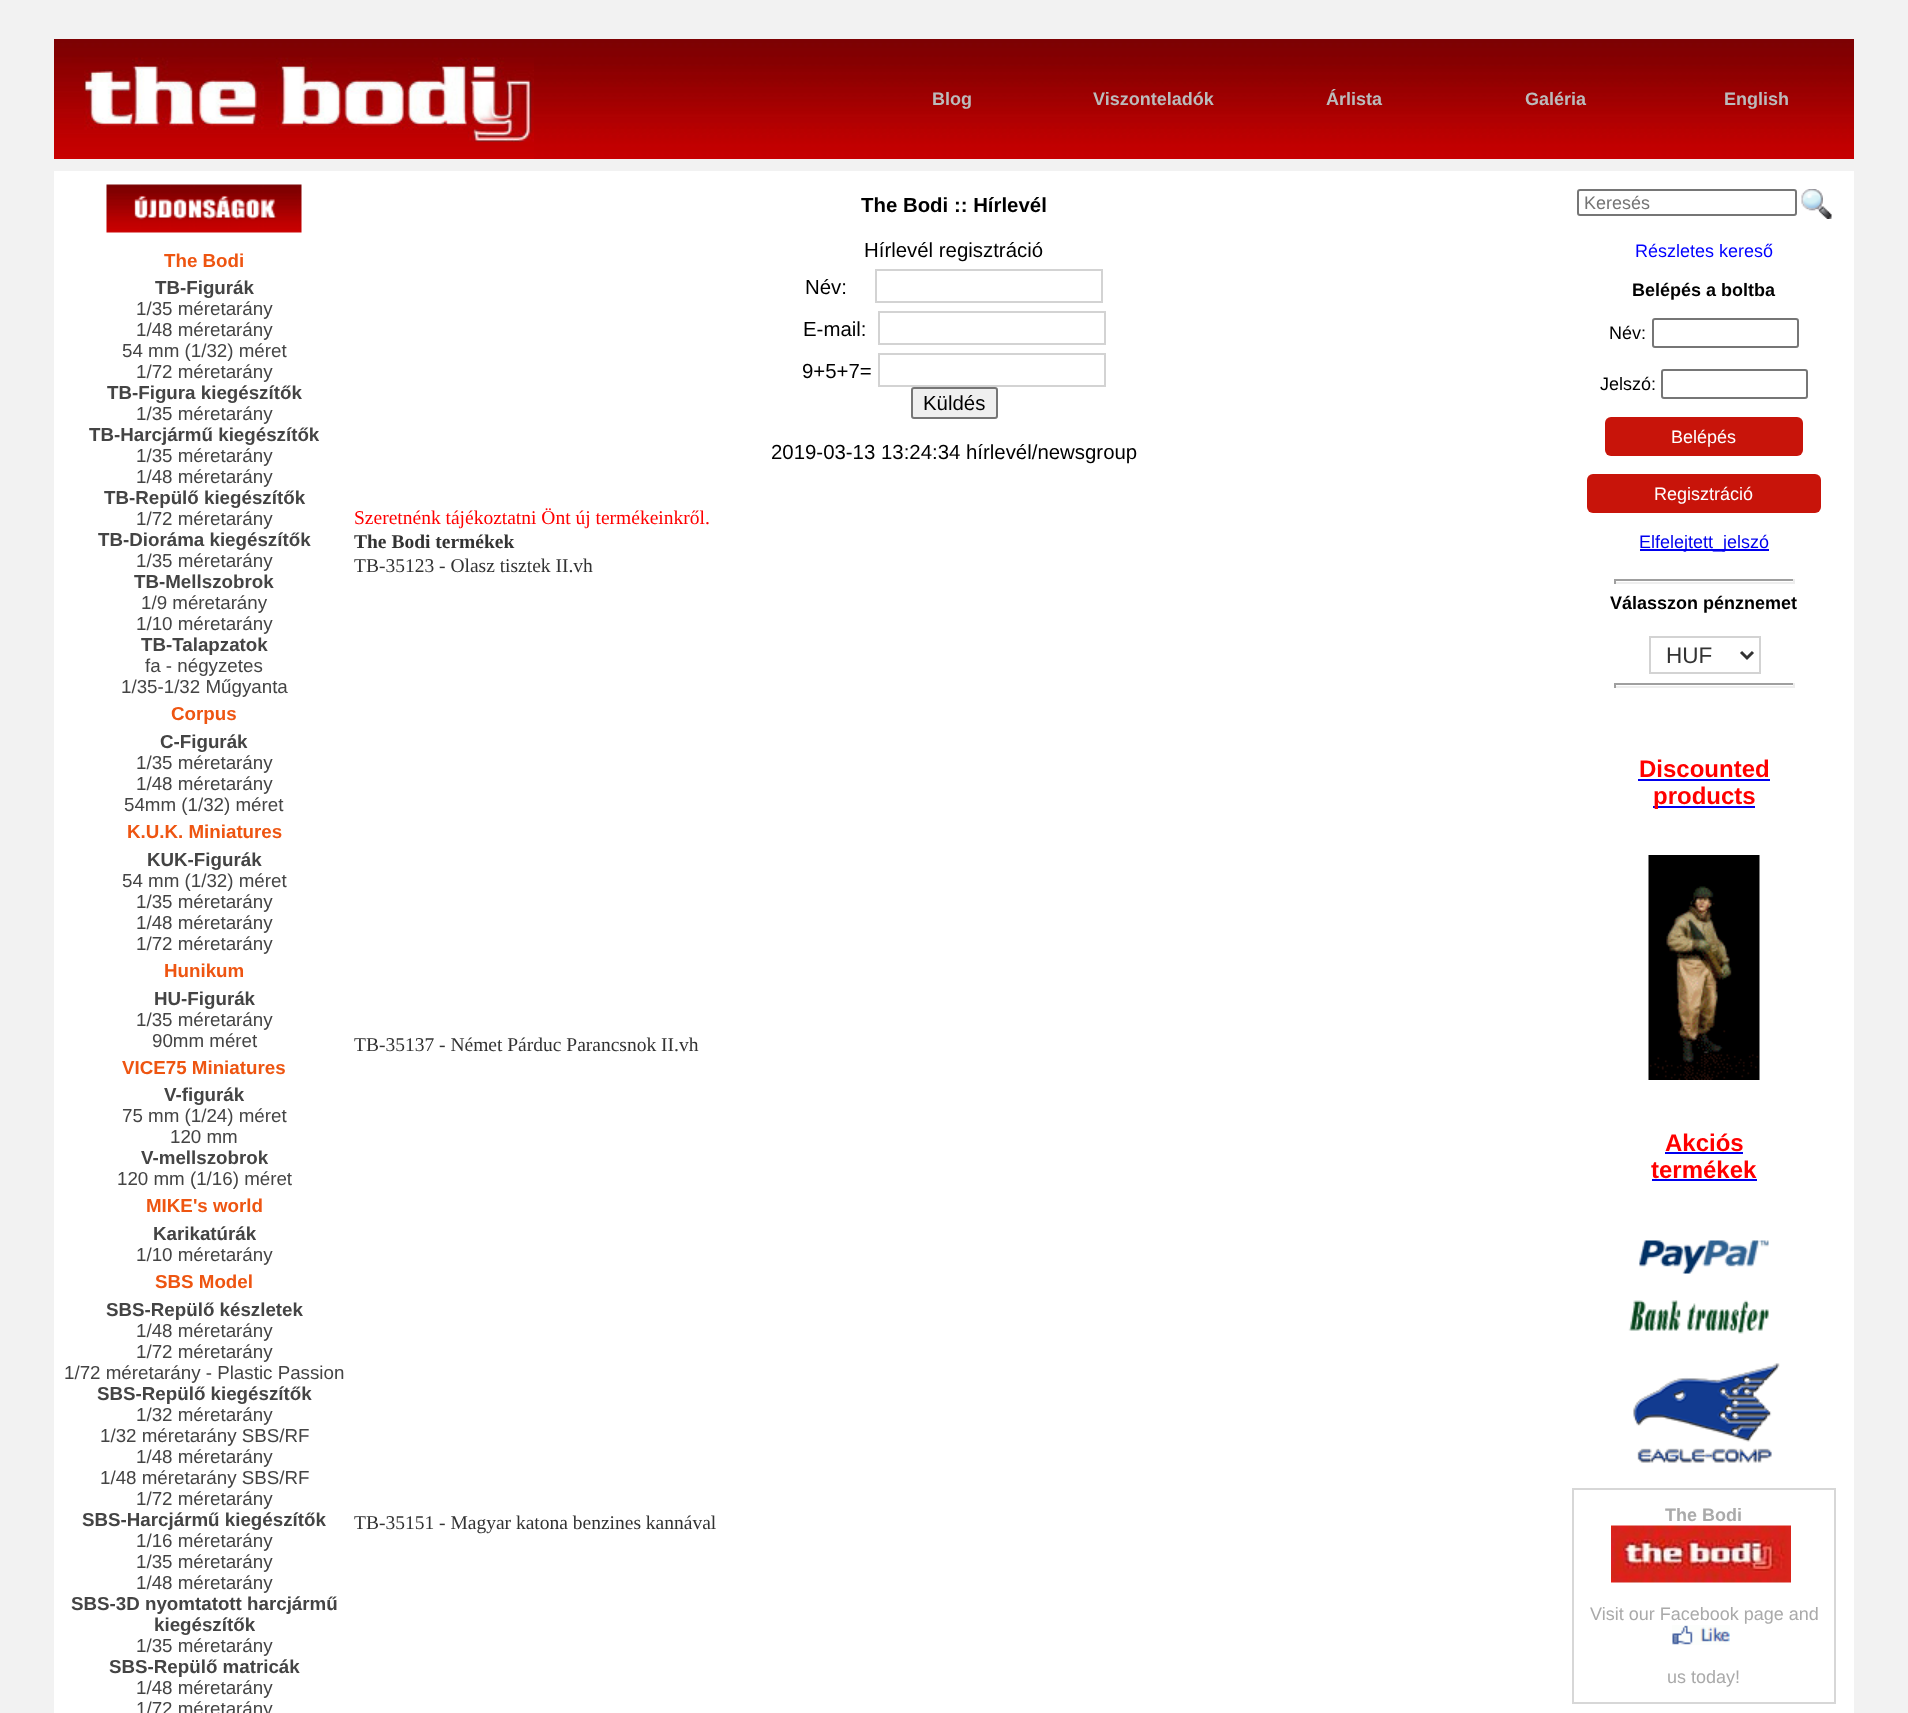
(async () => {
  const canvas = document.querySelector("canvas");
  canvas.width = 1908;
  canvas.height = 1713;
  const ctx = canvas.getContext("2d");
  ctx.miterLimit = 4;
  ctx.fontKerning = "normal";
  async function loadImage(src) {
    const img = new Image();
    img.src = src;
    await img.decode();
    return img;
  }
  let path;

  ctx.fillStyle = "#f2f2f2";
  ctx.fillRect(0, 0, 1908, 1713);
  ctx.drawImage(await loadImage("img/1.png"), 54, 39, 1800, 120);
  ctx.drawImage(await loadImage("img/2.png"), 54, 57, 480, 102);
  ctx.fillStyle = "#ffffff";
  ctx.fillRect(54, 171, 1800, 1542);
  ctx.drawImage(await loadImage("img/3.png"), 106, 184, 196, 49);
  ctx.strokeStyle = "#d3d3d3";
  ctx.lineWidth = 2;
  ctx.strokeRect(876, 270, 226, 32);
  ctx.strokeRect(879, 312, 226, 32);
  ctx.strokeRect(879, 354, 226, 32);
  ctx.fillStyle = "#efefef";
  ctx.beginPath();
  ctx.roundRect(912, 388, 85, 30, 2);
  ctx.fill();
  ctx.strokeStyle = "#767676";
  ctx.stroke();
  ctx.beginPath();
  ctx.roundRect(1578, 190, 218, 25, 2);
  ctx.stroke();
  ctx.drawImage(await loadImage("img/4.png"), 1801, 189, 31, 30);
  ctx.beginPath();
  ctx.roundRect(1653, 319, 145, 28, 2);
  ctx.stroke();
  ctx.beginPath();
  ctx.roundRect(1662, 370, 145, 28, 2);
  ctx.stroke();
  ctx.fillStyle = "#c8140a";
  ctx.beginPath();
  ctx.roundRect(1605, 417, 198, 39, 6);
  ctx.fill();
  ctx.beginPath();
  ctx.roundRect(1587, 474, 234, 39, 6);
  ctx.fill();
  for (const [x, y, w, h, color] of [
    [1640, 549, 129, 2, "#0000ee"],
    [1614, 579, 180, 2, "#9f9f9f"],
    [1793, 579, 2, 5, "#eeeeee"],
    [1614, 582, 180, 2, "#eeeeee"],
    [1614, 579, 2, 5, "#9f9f9f"],
  ]) {
    ctx.fillStyle = color;
    ctx.fillRect(x, y, w, h);
  }
  ctx.strokeStyle = "#d3d3d3";
  ctx.strokeRect(1650, 637, 110, 36);
  path = new Path2D("M1741 652L1747 658L1753 652");
  ctx.strokeStyle = "#333333";
  ctx.lineWidth = 3;
  ctx.stroke(path);
  for (const [x, y, w, h, color] of [
    [1614, 683, 180, 2, "#9f9f9f"],
    [1793, 683, 2, 5, "#eeeeee"],
    [1614, 686, 180, 2, "#eeeeee"],
    [1614, 683, 2, 5, "#9f9f9f"],
    [1638, 779, 132, 2, "#0000ee"],
    [1653, 806, 102, 2, "#0000ee"],
  ]) {
    ctx.fillStyle = color;
    ctx.fillRect(x, y, w, h);
  }
  ctx.drawImage(await loadImage("img/5.png"), 1648, 855, 112, 225);
  ctx.fillRect(1665, 1152, 78, 2);
  ctx.fillRect(1652, 1179, 105, 2);
  ctx.drawImage(await loadImage("img/6.png"), 1639, 1240, 130, 34);
  ctx.drawImage(await loadImage("img/7.png"), 1628, 1300, 141, 34);
  ctx.drawImage(await loadImage("img/8.png"), 1633, 1363, 147, 100);
  ctx.strokeStyle = "#d7d7d7";
  ctx.lineWidth = 2;
  ctx.strokeRect(1573, 1489, 262, 214);
  ctx.drawImage(await loadImage("img/9.png"), 1611, 1525, 180, 58);
  ctx.drawImage(await loadImage("img/10.png"), 1672, 1625, 58, 20);
  ctx.font = "bold 18px Liberation Sans";
  ctx.fillStyle = "#bbbbbb";
  for (const [text, x, y] of [
    ["Blog", 932, 105],
    ["Viszonteladók", 1093, 105],
    ["Árlista", 1326, 105],
    ["Galéria", 1525, 105],
    ["English", 1724, 105],
  ]) {
    ctx.fillText(text, x, y);
  }
  ctx.font = "bold 18.75px Liberation Sans";
  ctx.fillStyle = "#ee5511";
  ctx.fillText("The Bodi", 164, 267);
  ctx.fillStyle = "#444444";
  ctx.fillText("TB-Figurák", 155, 294);
  ctx.font = "18.75px Liberation Sans";
  for (const [text, x, y] of [
    ["1/35 méretarány", 136, 315],
    ["1/48 méretarány", 136, 336],
    ["54 mm (1/32) méret", 122, 357],
    ["1/72 méretarány", 136, 378],
  ]) {
    ctx.fillText(text, x, y);
  }
  ctx.font = "bold 18.75px Liberation Sans";
  ctx.fillText("TB-Figura kiegészítők", 107, 399);
  ctx.font = "18.75px Liberation Sans";
  ctx.fillText("1/35 méretarány", 136, 420);
  ctx.font = "bold 18.75px Liberation Sans";
  ctx.fillText("TB-Harcjármű kiegészítők", 89, 441);
  ctx.font = "18.75px Liberation Sans";
  ctx.fillText("1/35 méretarány", 136, 462);
  ctx.fillText("1/48 méretarány", 136, 483);
  ctx.font = "bold 18.75px Liberation Sans";
  ctx.fillText("TB-Repülő kiegészítők", 104, 504);
  ctx.font = "18.75px Liberation Sans";
  ctx.fillText("1/72 méretarány", 136, 525);
  ctx.font = "bold 18.75px Liberation Sans";
  ctx.fillText("TB-Dioráma kiegészítők", 98, 546);
  ctx.font = "18.75px Liberation Sans";
  ctx.fillText("1/35 méretarány", 136, 567);
  ctx.font = "bold 18.75px Liberation Sans";
  ctx.fillText("TB-Mellszobrok", 134, 588);
  ctx.font = "18.75px Liberation Sans";
  ctx.fillText("1/9 méretarány", 141, 609);
  ctx.fillText("1/10 méretarány", 136, 630);
  ctx.font = "bold 18.75px Liberation Sans";
  ctx.fillText("TB-Talapzatok", 141, 651);
  ctx.font = "18.75px Liberation Sans";
  ctx.fillText("fa - négyzetes", 145, 672);
  ctx.fillText("1/35-1/32 Műgyanta", 121, 693);
  ctx.font = "bold 18.75px Liberation Sans";
  ctx.fillStyle = "#ee5511";
  ctx.fillText("Corpus", 171, 720);
  ctx.fillStyle = "#444444";
  ctx.fillText("C-Figurák", 160, 748);
  ctx.font = "18.75px Liberation Sans";
  for (const [text, x, y] of [
    ["1/35 méretarány", 136, 769],
    ["1/48 méretarány", 136, 790],
    ["54mm (1/32) méret", 124, 811],
  ]) {
    ctx.fillText(text, x, y);
  }
  ctx.font = "bold 18.75px Liberation Sans";
  ctx.fillStyle = "#ee5511";
  ctx.fillText("K.U.K. Miniatures", 127, 838);
  ctx.fillStyle = "#444444";
  ctx.fillText("KUK-Figurák", 147, 866);
  ctx.font = "18.75px Liberation Sans";
  for (const [text, x, y] of [
    ["54 mm (1/32) méret", 122, 887],
    ["1/35 méretarány", 136, 908],
    ["1/48 méretarány", 136, 929],
    ["1/72 méretarány", 136, 950],
  ]) {
    ctx.fillText(text, x, y);
  }
  ctx.font = "bold 18.75px Liberation Sans";
  ctx.fillStyle = "#ee5511";
  ctx.fillText("Hunikum", 164, 977);
  ctx.fillStyle = "#444444";
  ctx.fillText("HU-Figurák", 154, 1005);
  ctx.font = "18.75px Liberation Sans";
  ctx.fillText("1/35 méretarány", 136, 1026);
  ctx.fillText("90mm méret", 152, 1047);
  ctx.font = "bold 18.75px Liberation Sans";
  ctx.fillStyle = "#ee5511";
  ctx.fillText("VICE75 Miniatures", 122, 1074);
  ctx.fillStyle = "#444444";
  ctx.fillText("V-figurák", 164, 1101);
  ctx.font = "18.75px Liberation Sans";
  ctx.fillText("75 mm (1/24) méret", 122, 1122);
  ctx.fillText("120 mm", 170, 1143);
  ctx.font = "bold 18.75px Liberation Sans";
  ctx.fillText("V-mellszobrok", 141, 1164);
  ctx.font = "18.75px Liberation Sans";
  ctx.fillText("120 mm (1/16) méret", 117, 1185);
  ctx.font = "bold 18.75px Liberation Sans";
  ctx.fillStyle = "#ee5511";
  ctx.fillText("MIKE's world", 146, 1212);
  ctx.fillStyle = "#444444";
  ctx.fillText("Karikatúrák", 153, 1240);
  ctx.font = "18.75px Liberation Sans";
  ctx.fillText("1/10 méretarány", 136, 1261);
  ctx.font = "bold 18.75px Liberation Sans";
  ctx.fillStyle = "#ee5511";
  ctx.fillText("SBS Model", 155, 1288);
  ctx.fillStyle = "#444444";
  ctx.fillText("SBS-Repülő készletek", 106, 1316);
  ctx.font = "18.75px Liberation Sans";
  for (const [text, x, y] of [
    ["1/48 méretarány", 136, 1337],
    ["1/72 méretarány", 136, 1358],
    ["1/72 méretarány - Plastic Passion", 64, 1379],
  ]) {
    ctx.fillText(text, x, y);
  }
  ctx.font = "bold 18.75px Liberation Sans";
  ctx.fillText("SBS-Repülő kiegészítők", 97, 1400);
  ctx.font = "18.75px Liberation Sans";
  for (const [text, x, y] of [
    ["1/32 méretarány", 136, 1421],
    ["1/32 méretarány SBS/RF", 100, 1442],
    ["1/48 méretarány", 136, 1463],
    ["1/48 méretarány SBS/RF", 100, 1484],
    ["1/72 méretarány", 136, 1505],
  ]) {
    ctx.fillText(text, x, y);
  }
  ctx.font = "bold 18.75px Liberation Sans";
  ctx.fillText("SBS-Harcjármű kiegészítők", 82, 1526);
  ctx.font = "18.75px Liberation Sans";
  for (const [text, x, y] of [
    ["1/16 méretarány", 136, 1547],
    ["1/35 méretarány", 136, 1568],
    ["1/48 méretarány", 136, 1589],
  ]) {
    ctx.fillText(text, x, y);
  }
  ctx.font = "bold 18.75px Liberation Sans";
  ctx.fillText("SBS-3D nyomtatott harcjármű", 71, 1610);
  ctx.fillText("kiegészítők", 154, 1631);
  ctx.font = "18.75px Liberation Sans";
  ctx.fillText("1/35 méretarány", 136, 1652);
  ctx.font = "bold 18.75px Liberation Sans";
  ctx.fillText("SBS-Repülő matricák", 109, 1673);
  ctx.font = "18.75px Liberation Sans";
  ctx.fillText("1/48 méretarány", 136, 1694);
  ctx.fillText("1/72 méretarány", 136, 1715);
  ctx.font = "bold 20.4px Liberation Sans";
  ctx.fillStyle = "#000000";
  ctx.fillText("The Bodi :: Hírlevél", 861, 212);
  ctx.font = "20.4px Liberation Sans";
  for (const [text, x, y] of [
    ["Hírlevél regisztráció", 864, 257],
    ["Név:", 805, 294],
    ["E-mail:", 803, 336],
    ["9+5+7=", 802, 378],
    ["Küldés", 923, 410],
    ["2019-03-13 13:24:34 hírlevél/newsgroup", 771, 459],
  ]) {
    ctx.fillText(text, x, y);
  }
  ctx.font = "19.5px Liberation Serif";
  ctx.fillStyle = "#ff0000";
  ctx.fillText("Szeretnénk tájékoztatni Önt új termékeinkről.", 354, 524);
  ctx.font = "bold 19.5px Liberation Serif";
  ctx.fillStyle = "#333333";
  ctx.fillText("The Bodi termékek", 354, 548);
  ctx.font = "19.5px Liberation Serif";
  for (const [text, x, y] of [
    ["TB-35123 - Olasz tisztek II.vh", 354, 572],
    ["TB-35137 - Német Párduc Parancsnok II.vh", 354, 1051],
    ["TB-35151 - Magyar katona benzines kannával", 354, 1529],
  ]) {
    ctx.fillText(text, x, y);
  }
  ctx.font = "18px Liberation Sans";
  ctx.fillStyle = "#757575";
  ctx.fillText("Keresés", 1584, 209);
  ctx.fillStyle = "#0000ff";
  ctx.fillText("Részletes kereső", 1635, 257);
  ctx.font = "bold 18px Liberation Sans";
  ctx.fillStyle = "#000000";
  ctx.fillText("Belépés a boltba", 1632, 296);
  ctx.font = "18px Liberation Sans";
  ctx.fillText("Név:", 1609, 339);
  ctx.fillText("Jelszó:", 1600, 390);
  ctx.fillStyle = "#ffffff";
  ctx.fillText("Belépés", 1671, 443);
  ctx.fillText("Regisztráció", 1654, 500);
  ctx.fillStyle = "#0000ee";
  ctx.fillText("Elfelejtett_jelszó", 1639, 548);
  ctx.font = "bold 18px Liberation Sans";
  ctx.fillStyle = "#000000";
  ctx.fillText("Válasszon pénznemet", 1610, 609);
  ctx.font = "22.5px Liberation Sans";
  ctx.fillStyle = "#333333";
  ctx.fillText("HUF", 1666, 663);
  ctx.font = "bold 24px Liberation Sans";
  ctx.fillStyle = "#ff0000";
  for (const [text, x, y] of [
    ["Discounted", 1639, 777],
    ["products", 1653, 804],
    ["Akciós", 1665, 1151],
    ["termékek", 1651, 1178],
  ]) {
    ctx.fillText(text, x, y);
  }
  ctx.font = "bold 18px Liberation Sans";
  ctx.fillStyle = "#aaaaaa";
  ctx.fillText("The Bodi", 1665, 1521);
  ctx.font = "18px Liberation Sans";
  ctx.fillText("Visit our Facebook page and", 1590, 1620);
  ctx.fillText("us today!", 1667, 1683);
})();
